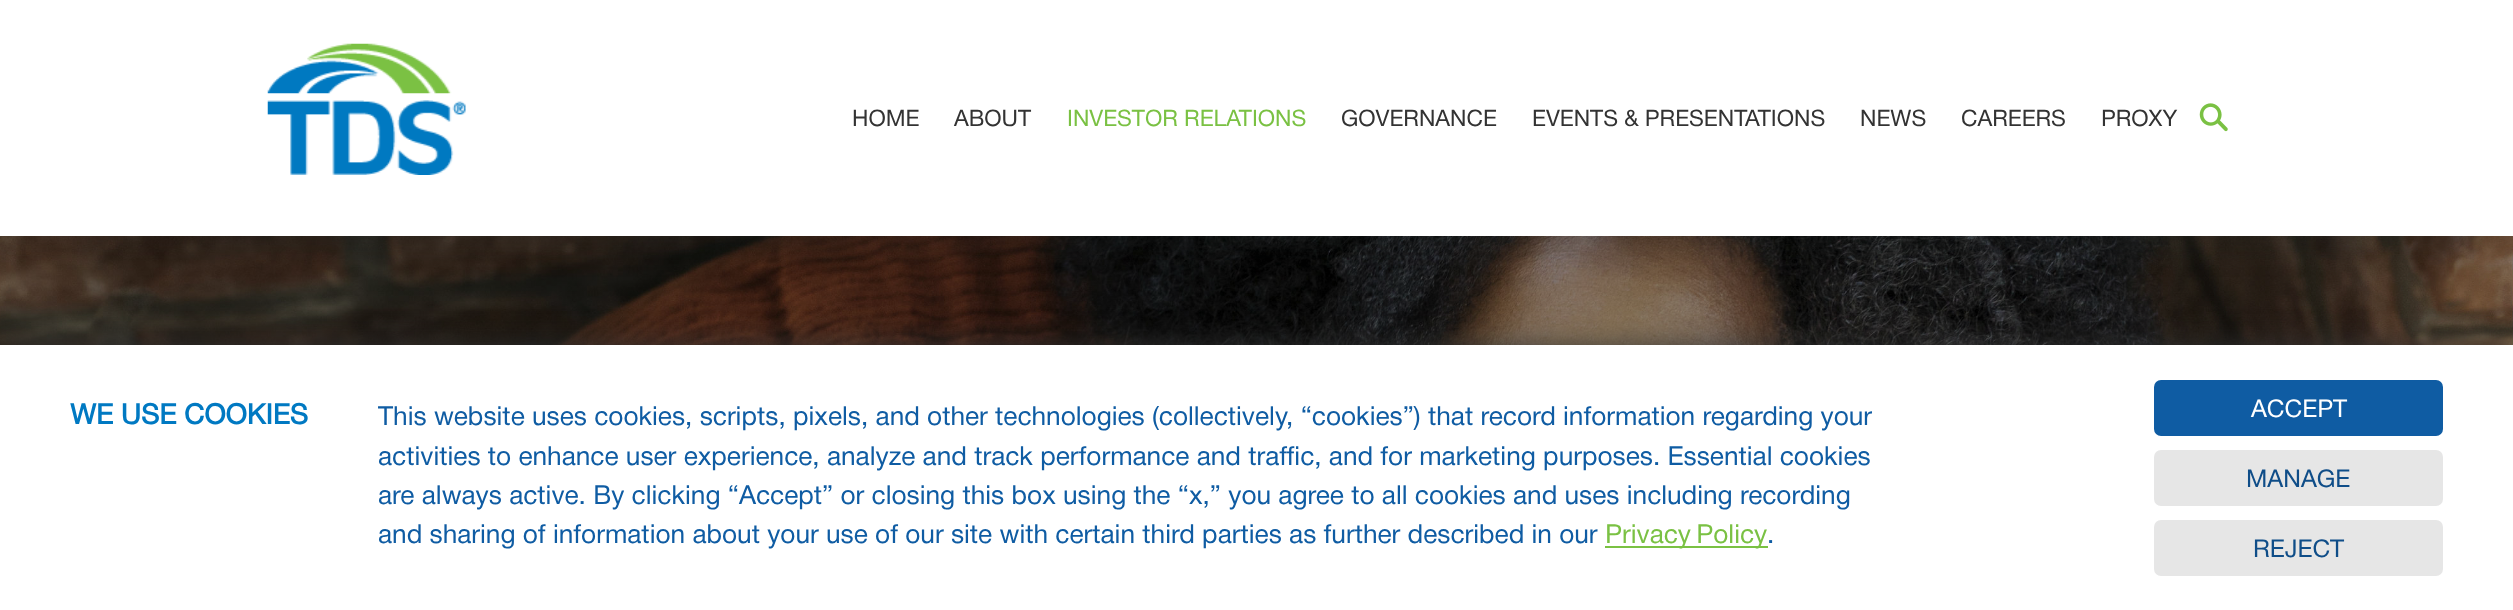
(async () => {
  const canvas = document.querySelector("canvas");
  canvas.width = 2513;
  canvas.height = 610;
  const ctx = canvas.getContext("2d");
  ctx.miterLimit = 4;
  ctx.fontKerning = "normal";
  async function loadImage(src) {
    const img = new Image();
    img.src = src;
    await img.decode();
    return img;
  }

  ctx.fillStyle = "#ffffff";
  ctx.fillRect(0, 0, 2513, 610);
  ctx.drawImage(await loadImage("img/3.png"), 0, 236, 2513, 109);
  ctx.fillStyle = "rgba(40, 48, 51, 0.2)";
  ctx.filter = "blur(17.5px)";
  ctx.beginPath();
  ctx.rect(0, 4, 2513, 236);
  ctx.fill();
  ctx.filter = "none";
  ctx.fillStyle = "#ffffff";
  ctx.fillRect(0, 0, 2513, 236);
  ctx.drawImage(await loadImage("img/1.png"), 267, 43, 199, 132);
  ctx.drawImage(await loadImage("img/2.png"), 2199, 103, 29, 29);
  ctx.fillStyle = "#333333";
  ctx.filter = "blur(16px)";
  ctx.beginPath();
  ctx.rect(0, 348, 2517, 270);
  ctx.fill();
  ctx.filter = "none";
  ctx.fillStyle = "#ffffff";
  ctx.fillRect(0, 345, 2513, 265);
  ctx.fillStyle = "#7ac143";
  ctx.fillRect(1605, 546, 163, 2);
  ctx.fillStyle = "#0f5ca3";
  ctx.beginPath();
  ctx.roundRect(2154, 380, 289, 56, 7);
  ctx.fill();
  ctx.fillStyle = "#e6e6e6";
  ctx.beginPath();
  ctx.roundRect(2154, 450, 289, 56, 7);
  ctx.fill();
  ctx.beginPath();
  ctx.roundRect(2154, 520, 289, 56, 7);
  ctx.fill();
  ctx.font = "22.75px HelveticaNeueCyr";
  ctx.fillStyle = "#333333";
  ctx.fillText("HOME", 852, 126);
  ctx.fillText("ABOUT", 954, 126);
  ctx.fillStyle = "#7ac143";
  ctx.fillText("INVESTOR RELATIONS", 1067, 126);
  ctx.fillStyle = "#333333";
  for (const [text, x, y] of [
    ["GOVERNANCE", 1341, 126],
    ["EVENTS & PRESENTATIONS", 1532, 126],
    ["NEWS", 1860, 126],
    ["CAREERS", 1961, 126],
    ["PROXY", 2101, 126],
  ]) {
    ctx.fillText(text, x, y);
  }
  ctx.font = "bold 28px HelveticaNeueCyr";
  ctx.fillStyle = "#0079c2";
  ctx.fillText("WE USE COOKIES", 70, 424);
  ctx.font = "26.25px HelveticaNeueCyr";
  ctx.fillStyle = "#0f5ca3";
  for (const [text, x, y] of [
    ["This website uses cookies, scripts, pixels, and other technologies (collectively, “cookies”) that record information regarding your", 378, 425],
    ["activities to enhance user experience, analyze and track performance and traffic, and for marketing purposes. Essential cookies", 378, 465],
    ["are always active. By clicking “Accept” or closing this box using the “x,” you agree to all cookies and uses including recording", 378, 504],
    ["and sharing of information about your use of our site with certain third parties as further described in our", 378, 543],
  ]) {
    ctx.fillText(text, x, y);
  }
  ctx.wordSpacing = "-2px";
  ctx.fillStyle = "#7ac143";
  ctx.fillText("Privacy Policy", 1605, 543);
  ctx.wordSpacing = "0px";
  ctx.fillStyle = "#0f5ca3";
  ctx.fillText(".", 1767, 543);
  ctx.font = "24.5px HelveticaNeueCyr";
  ctx.fillStyle = "#ffffff";
  ctx.fillText("ACCEPT", 2251, 417);
  ctx.fillStyle = "#0f4d88";
  ctx.fillText("MANAGE", 2246, 487);
  ctx.fillText("REJECT", 2253, 557);
})();
